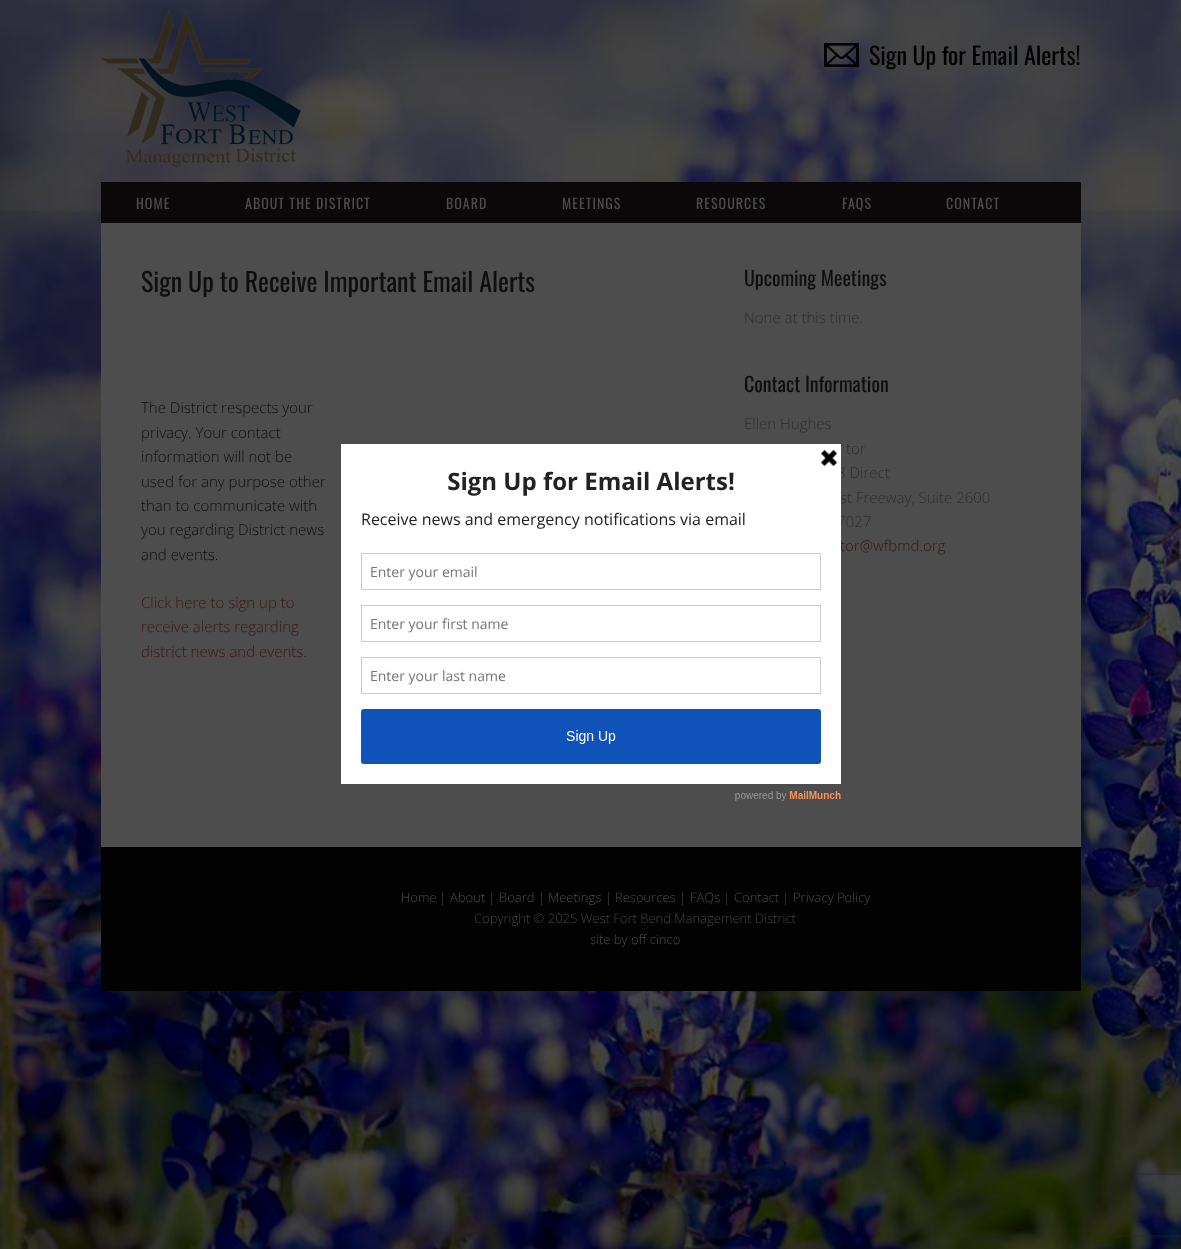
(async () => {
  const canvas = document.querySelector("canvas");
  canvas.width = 1181;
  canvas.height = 1249;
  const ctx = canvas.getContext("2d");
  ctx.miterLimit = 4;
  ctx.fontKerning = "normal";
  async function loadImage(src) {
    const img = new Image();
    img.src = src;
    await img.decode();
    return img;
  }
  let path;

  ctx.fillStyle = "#ffffff";
  ctx.fillRect(0, 0, 1181, 1249);
  ctx.drawImage(await loadImage("img/1.png"), 0, 0, 1181, 1249);
  ctx.drawImage(await loadImage("img/2.png"), 101, 10, 200, 157);
  ctx.drawImage(await loadImage("img/3.png"), 824, 43, 35, 24);
  for (const [x, y, w, h, color] of [
    [101, 182, 980, 41, "#0a0808"],
    [101, 223, 980, 624, "#4d4d4d"],
    [101, 847, 980, 144, "#020202"],
  ]) {
    ctx.fillStyle = color;
    ctx.fillRect(x, y, w, h);
  }
  ctx.save();
  path = new Path2D("M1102 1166H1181V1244H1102ZM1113 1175H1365C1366 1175 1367 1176 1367 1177V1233C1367 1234 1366 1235 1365 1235H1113C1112 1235 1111 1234 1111 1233V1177C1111 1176 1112 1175 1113 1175Z");
  ctx.clip(path, "evenodd");
  ctx.fillStyle = "#262626";
  ctx.filter = "blur(2.5px)";
  ctx.beginPath();
  ctx.roundRect(1111, 1175, 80, 60, 2);
  ctx.fill();
  ctx.filter = "none";
  ctx.restore();
  ctx.font = "24px Oswald";
  ctx.fillStyle = "#000000";
  ctx.fillText("Sign Up for Email Alerts!", 869, 65);
  ctx.letterSpacing = "1px";
  ctx.font = "14px Oswald";
  ctx.fillStyle = "#4d4d4d";
  for (const [text, x, y] of [
    ["HOME", 136, 209],
    ["ABOUT THE DISTRICT", 245, 209],
    ["BOARD", 446, 209],
    ["MEETINGS", 562, 209],
    ["RESOURCES", 696, 209],
    ["FAQS", 842, 209],
    ["CONTACT", 946, 209],
  ]) {
    ctx.fillText(text, x, y);
  }
  ctx.letterSpacing = "0px";
  ctx.font = "26px Oswald";
  ctx.fillStyle = "#0f0f0f";
  ctx.fillText("Sign Up to Receive Important Email Alerts", 141, 292);
  ctx.font = "300 15px Open Sans";
  for (const [text, x, y] of [
    ["The District respects your", 141, 413],
    ["privacy. Your contact", 141, 438],
    ["information will not be", 141, 462],
    ["used for any purpose other", 141, 487],
    ["than to communicate with", 141, 511],
    ["you regarding District news", 141, 535],
    ["and events.", 141, 560],
  ]) {
    ctx.fillText(text, x, y);
  }
  ctx.fillStyle = "#371914";
  for (const [text, x, y] of [
    ["Click here to sign up to", 141, 608],
    ["receive alerts regarding", 141, 632],
    ["district news and events.", 141, 657],
  ]) {
    ctx.fillText(text, x, y);
  }
  ctx.font = "20px Oswald";
  ctx.fillStyle = "#0f0f0f";
  ctx.fillText("Upcoming Meetings", 744, 286);
  ctx.font = "300 15px Open Sans";
  ctx.fillStyle = "#2e2e2e";
  ctx.fillText("None at this time.", 744, 323);
  ctx.font = "20px Oswald";
  ctx.fillStyle = "#0f0f0f";
  ctx.fillText("Contact Information", 744, 392);
  ctx.font = "300 15px Open Sans";
  ctx.fillStyle = "#2e2e2e";
  for (const [text, x, y] of [
    ["Ellen Hughes", 744, 429],
    ["tor", 846, 454],
    ["8 Direct", 837, 478],
    ["st Freeway, Suite 2600", 840, 503],
    ["7027", 837, 527],
  ]) {
    ctx.fillText(text, x, y);
  }
  ctx.fillStyle = "#371914";
  ctx.fillText("tor@wfbmd.org", 840, 551);
  ctx.font = "300 13px Open Sans";
  ctx.fillStyle = "#4d4d4d";
  ctx.fillText("Home", 401, 902);
  ctx.fillStyle = "#464646";
  ctx.fillText("|", 439, 902);
  ctx.fillStyle = "#4d4d4d";
  ctx.fillText("About", 450, 902);
  ctx.fillStyle = "#464646";
  ctx.fillText("|", 488, 902);
  ctx.fillStyle = "#4d4d4d";
  ctx.fillText("Board", 499, 902);
  ctx.fillStyle = "#464646";
  ctx.fillText("|", 538, 902);
  ctx.fillStyle = "#4d4d4d";
  ctx.fillText("Meetings", 548, 902);
  ctx.fillStyle = "#464646";
  ctx.fillText("|", 605, 902);
  ctx.fillStyle = "#4d4d4d";
  ctx.fillText("Resources", 615, 902);
  ctx.fillStyle = "#464646";
  ctx.fillText("|", 679, 902);
  ctx.fillStyle = "#4d4d4d";
  ctx.fillText("FAQs", 690, 902);
  ctx.fillStyle = "#464646";
  ctx.fillText("|", 723, 902);
  ctx.fillStyle = "#4d4d4d";
  ctx.fillText("Contact", 734, 902);
  ctx.fillStyle = "#464646";
  ctx.fillText("|", 782, 902);
  ctx.fillStyle = "#4d4d4d";
  ctx.fillText("Privacy Policy", 793, 902);
  ctx.fillStyle = "#464646";
  ctx.fillText("Copyright © 2025 West Fort Bend Management District", 474, 923);
  ctx.fillStyle = "#4d4d4d";
  ctx.fillText("site by off cinco", 590, 944);
  ctx.drawImage(await loadImage("img/4.png"), 341, 444, 500, 357);
})();
